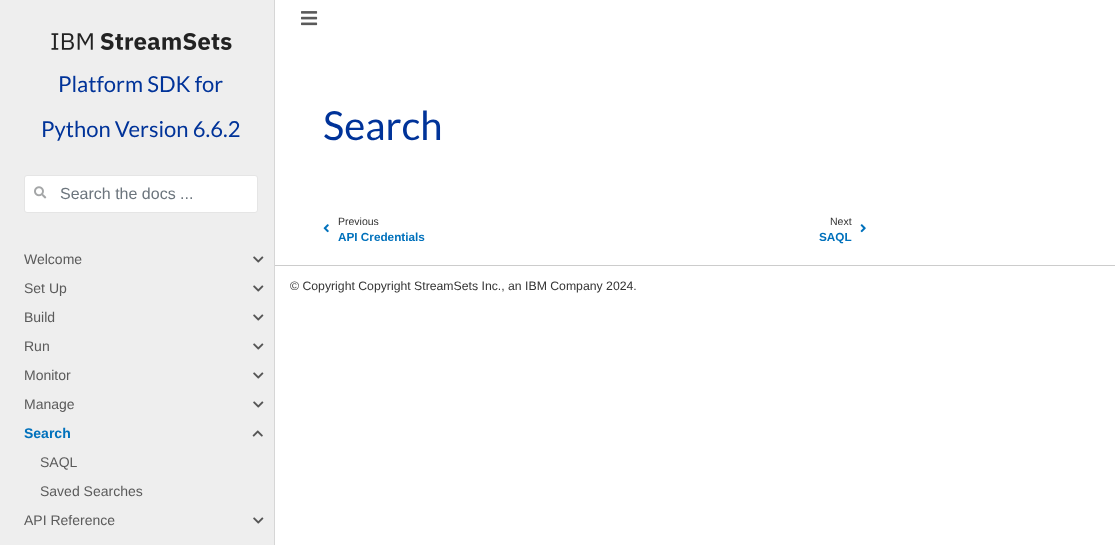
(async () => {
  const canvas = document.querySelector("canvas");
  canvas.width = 1115;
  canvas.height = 545;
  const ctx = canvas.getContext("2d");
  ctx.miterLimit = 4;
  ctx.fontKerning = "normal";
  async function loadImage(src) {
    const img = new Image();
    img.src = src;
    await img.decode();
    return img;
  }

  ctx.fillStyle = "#ffffff";
  ctx.fillRect(0, 0, 1115, 545);
  ctx.fillStyle = "#eeeeee";
  ctx.fillRect(0, 0, 274, 545);
  ctx.fillStyle = "#d6d6d6";
  ctx.fillRect(274, 0, 1, 545);
  ctx.drawImage(await loadImage("img/1.png"), 51, 33, 181, 17);
  ctx.fillStyle = "#ffffff";
  ctx.beginPath();
  ctx.roundRect(24.5, 175.5, 233, 37, 2.5);
  ctx.fill();
  ctx.strokeStyle = "#e5e5e5";
  ctx.stroke();
  ctx.drawImage(await loadImage("img/2.png"), 34, 186, 13, 13);
  ctx.drawImage(await loadImage("img/3.png"), 253, 256, 11, 7);
  ctx.drawImage(await loadImage("img/3.png"), 253, 285, 11, 7);
  ctx.drawImage(await loadImage("img/3.png"), 253, 314, 11, 7);
  ctx.drawImage(await loadImage("img/3.png"), 253, 343, 11, 7);
  ctx.drawImage(await loadImage("img/3.png"), 253, 372, 11, 7);
  ctx.drawImage(await loadImage("img/3.png"), 253, 401, 11, 7);
  ctx.drawImage(await loadImage("img/4.png"), 252, 430, 11, 7);
  ctx.drawImage(await loadImage("img/3.png"), 253, 517, 11, 7);
  ctx.drawImage(await loadImage("img/5.png"), 301, 11, 17, 15);
  ctx.drawImage(await loadImage("img/6.png"), 323, 224, 6, 9);
  ctx.drawImage(await loadImage("img/7.png"), 860, 224, 6, 9);
  ctx.fillStyle = "#cccccc";
  ctx.fillRect(275, 265, 840, 1);
  ctx.font = "22px Lato";
  ctx.fillStyle = "#003399";
  ctx.fillText("Platform SDK for", 58, 92);
  ctx.fillText("Python Version 6.6.2", 41, 137);
  ctx.font = "16px Liberation Sans";
  ctx.fillStyle = "#6c757d";
  ctx.fillText("Search the docs ...", 60, 199);
  ctx.font = "14px Liberation Sans";
  ctx.fillStyle = "#5a5a5a";
  for (const [text, x, y] of [
    ["Welcome", 24, 264],
    ["Set Up", 24, 293],
    ["Build", 24, 322],
    ["Run", 24, 351],
    ["Monitor", 24, 380],
    ["Manage", 24, 409],
  ]) {
    ctx.fillText(text, x, y);
  }
  ctx.font = "bold 14px Liberation Sans";
  ctx.fillStyle = "#0071bc";
  ctx.fillText("Search", 24, 438);
  ctx.font = "14px Liberation Sans";
  ctx.fillStyle = "#5a5a5a";
  for (const [text, x, y] of [
    ["SAQL", 40, 467],
    ["Saved Searches", 40, 496],
    ["API Reference", 24, 525],
  ]) {
    ctx.fillText(text, x, y);
  }
  ctx.font = "40px Lato";
  ctx.fillStyle = "#003399";
  ctx.fillText("Search", 323, 140);
  ctx.font = "10.5px Liberation Sans";
  ctx.fillStyle = "#333333";
  ctx.fillText("Previous", 338, 225);
  ctx.font = "bold 11.75px Liberation Sans";
  ctx.fillStyle = "#0071bc";
  ctx.fillText("API Credentials", 338, 241);
  ctx.font = "10.5px Liberation Sans";
  ctx.fillStyle = "#333333";
  ctx.fillText("Next", 830, 225);
  ctx.font = "bold 11.75px Liberation Sans";
  ctx.fillStyle = "#0071bc";
  ctx.fillText("SAQL", 819, 241);
  ctx.font = "12.25px Liberation Sans";
  ctx.fillStyle = "#333333";
  ctx.fillText("© Copyright Copyright StreamSets Inc., an IBM Company 2024.", 290, 290);
})();
